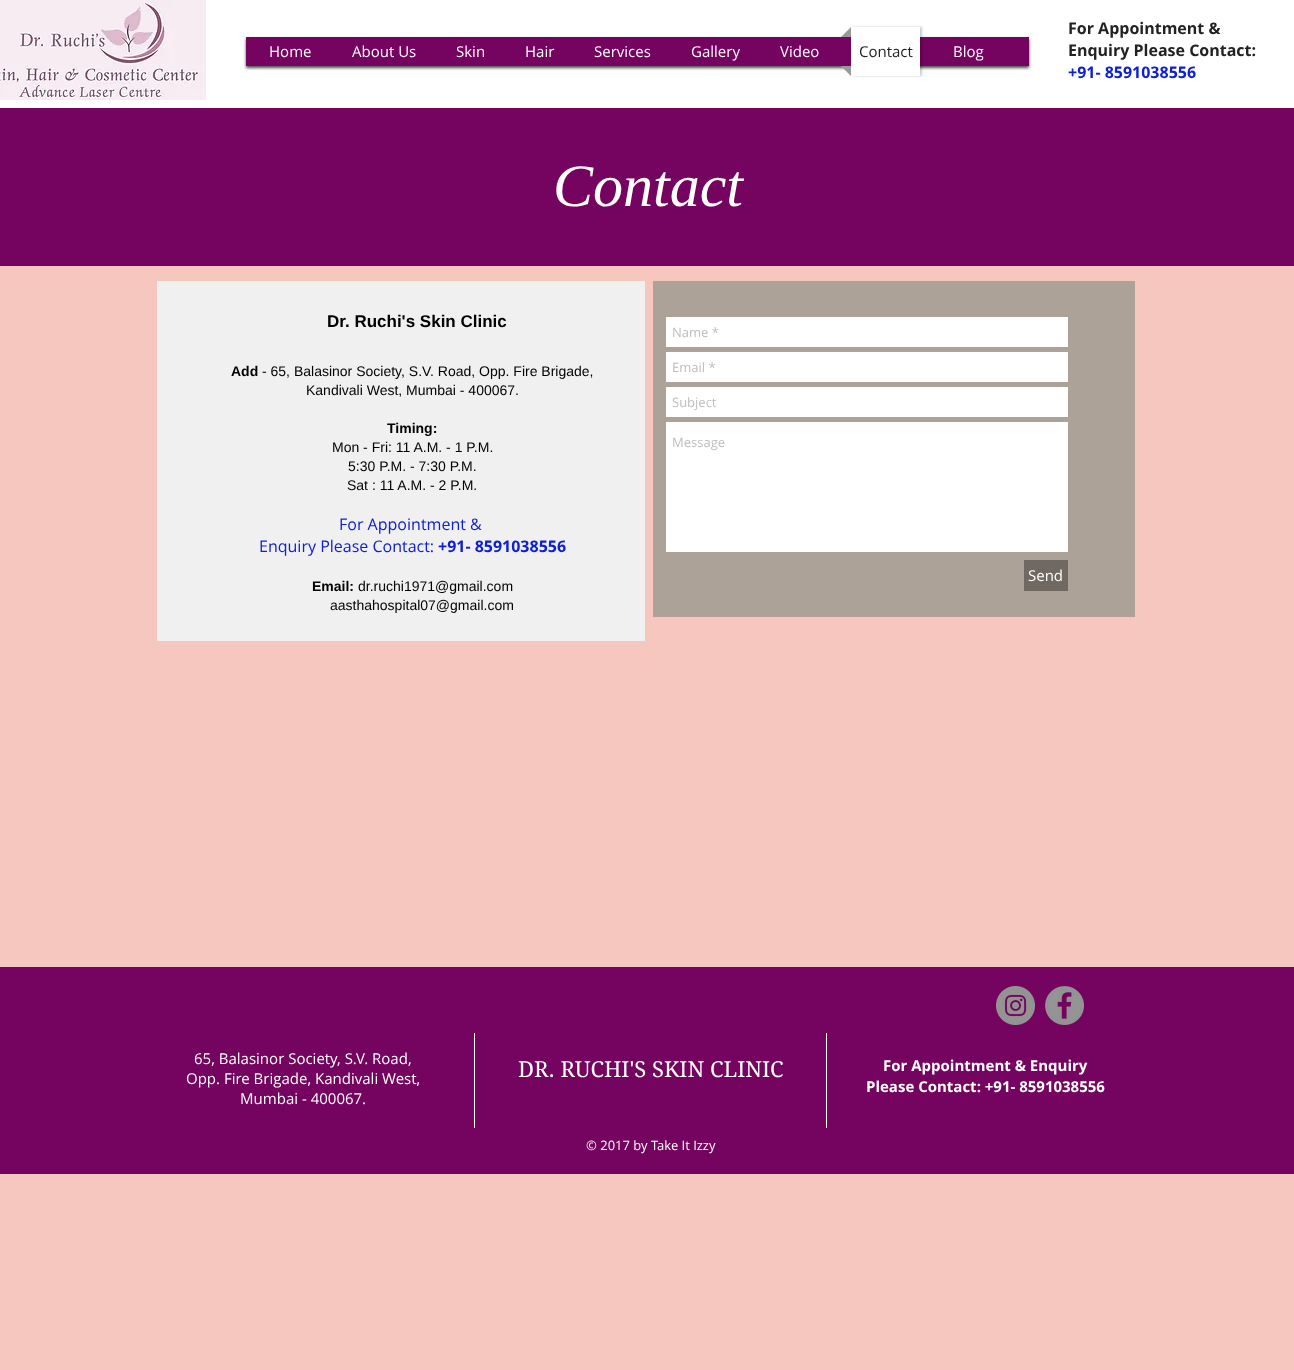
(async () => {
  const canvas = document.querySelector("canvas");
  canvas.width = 1294;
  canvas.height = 1370;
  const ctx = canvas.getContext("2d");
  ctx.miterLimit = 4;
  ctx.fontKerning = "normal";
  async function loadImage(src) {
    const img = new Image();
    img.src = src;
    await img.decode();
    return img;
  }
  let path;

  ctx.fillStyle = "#f5c7be";
  ctx.fillRect(0, 0, 1294, 1370);
  ctx.fillStyle = "#ffffff";
  ctx.fillRect(0, 0, 1294, 108);
  ctx.drawImage(await loadImage("img/1.png"), 0, 0, 206, 100);
  ctx.fillStyle = "rgba(0, 0, 0, 0.7)";
  ctx.filter = "blur(1.5px)";
  ctx.beginPath();
  ctx.rect(246, 39, 783, 29);
  ctx.fill();
  ctx.filter = "none";
  ctx.fillStyle = "#74045f";
  ctx.fillRect(246, 37, 783, 29);
  ctx.fillStyle = "rgba(0, 0, 0, 0.2)";
  ctx.filter = "blur(1px)";
  ctx.beginPath();
  ctx.rect(853, 27, 69, 49);
  ctx.fill();
  ctx.filter = "none";
  ctx.fillStyle = "#999999";
  path = new Path2D("M851 37H841L851 27ZM841 66H851V76Z");
  ctx.fill(path);
  for (const [x, y, w, h, color] of [
    [851, 27, 69, 49, "#ffffff"],
    [0, 108, 1294, 158, "#74045f"],
    [157, 281, 488, 360, "#f0f0f0"],
    [653, 281, 482, 336, "#aca298"],
    [666, 317, 402, 30, "#ffffff"],
    [666, 352, 402, 30, "#ffffff"],
    [666, 387, 402, 30, "#ffffff"],
    [666, 422, 402, 130, "#ffffff"],
    [1024, 560, 44, 31, "#706962"],
    [0, 967, 1294, 207, "#74045f"],
    [474, 1033, 1, 95, "#ffffff"],
    [826, 1033, 1, 95, "#ffffff"],
  ]) {
    ctx.fillStyle = color;
    ctx.fillRect(x, y, w, h);
  }
  ctx.drawImage(await loadImage("img/2.png"), 996, 986, 39, 39);
  ctx.drawImage(await loadImage("img/3.png"), 1045, 986, 39, 39);
  ctx.font = "15px Open Sans";
  for (const [text, x, y] of [
    ["Home", 269, 57],
    ["About Us", 352, 57],
    ["Skin", 456, 57],
    ["Hair", 525, 57],
    ["Services", 594, 57],
    ["Gallery", 691, 57],
    ["Video", 780, 57],
  ]) {
    ctx.fillText(text, x, y);
  }
  ctx.fillStyle = "#222222";
  ctx.fillText("Contact", 859, 57);
  ctx.fillStyle = "#ffffff";
  ctx.fillText("Blog", 953, 57);
  ctx.font = "bold 16px Open Sans";
  ctx.fillStyle = "#222222";
  ctx.fillText("For Appointment &", 1068, 34);
  ctx.fillText("Enquiry Please Contact:", 1068, 56);
  ctx.fillStyle = "#0e20d1";
  ctx.fillText("+91- 8591038556", 1068, 78);
  ctx.font = "italic 60px Liberation Serif";
  ctx.fillStyle = "#ffffff";
  ctx.fillText("Contact", 553, 206);
  ctx.font = "bold 17px Liberation Sans";
  ctx.fillStyle = "#000000";
  ctx.fillText("Dr. Ruchi's Skin Clinic", 327, 327);
  ctx.font = "bold 14px Liberation Sans";
  ctx.fillText("Add", 231, 376);
  ctx.font = "14px Liberation Sans";
  ctx.fillText("- 65, Balasinor Society, S.V. Road, Opp. Fire Brigade,", 262, 376);
  ctx.fillText("Kandivali West, Mumbai - 400067.", 306, 395);
  ctx.font = "bold 14px Liberation Sans";
  ctx.fillText("Timing:", 387, 433);
  ctx.font = "14px Liberation Sans";
  for (const [text, x, y] of [
    ["Mon - Fri: 11 A.M. - 1 P.M.", 332, 452],
    ["5:30 P.M. - 7:30 P.M.", 348, 471],
    ["Sat : 11 A.M. - 2 P.M.", 347, 490],
  ]) {
    ctx.fillText(text, x, y);
  }
  ctx.font = "16px Open Sans";
  ctx.fillStyle = "#0e20d1";
  ctx.fillText("For Appointment &", 339, 530);
  ctx.fillText("Enquiry Please Contact:", 259, 552);
  ctx.font = "bold 16px Open Sans";
  ctx.fillText("+91- 8591038556", 438, 552);
  ctx.font = "bold 14px Liberation Sans";
  ctx.fillStyle = "#000000";
  ctx.fillText("Email:", 312, 591);
  ctx.font = "14px Liberation Sans";
  ctx.fillText("dr.ruchi1971@gmail.com", 358, 591);
  ctx.fillText("aasthahospital07@gmail.com", 330, 610);
  ctx.font = "13px Open Sans";
  ctx.fillStyle = "#bebebe";
  for (const [text, x, y] of [
    ["Name *", 672, 337],
    ["Email *", 672, 372],
    ["Subject", 672, 407],
    ["Message", 672, 447],
  ]) {
    ctx.fillText(text, x, y);
  }
  ctx.font = "15px Open Sans";
  ctx.fillStyle = "#ffffff";
  for (const [text, x, y] of [
    ["Send", 1028, 581],
    ["65, Balasinor Society, S.V. Road,", 194, 1064],
    ["Opp. Fire Brigade, Kandivali West,", 186, 1084],
    ["Mumbai - 400067.", 240, 1104],
  ]) {
    ctx.fillText(text, x, y);
  }
  ctx.font = "22px 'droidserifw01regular'";
  ctx.fillText("DR. RUCHI'S SKIN CLINIC", 518, 1077);
  ctx.font = "bold 15px Open Sans";
  ctx.fillText("For Appointment & Enquiry", 883, 1071);
  ctx.fillText("Please Contact: +91- 8591038556", 866, 1092);
  ctx.font = "13px Open Sans";
  ctx.fillText("© 2017 by Take It Izzy", 586, 1150);
})();
